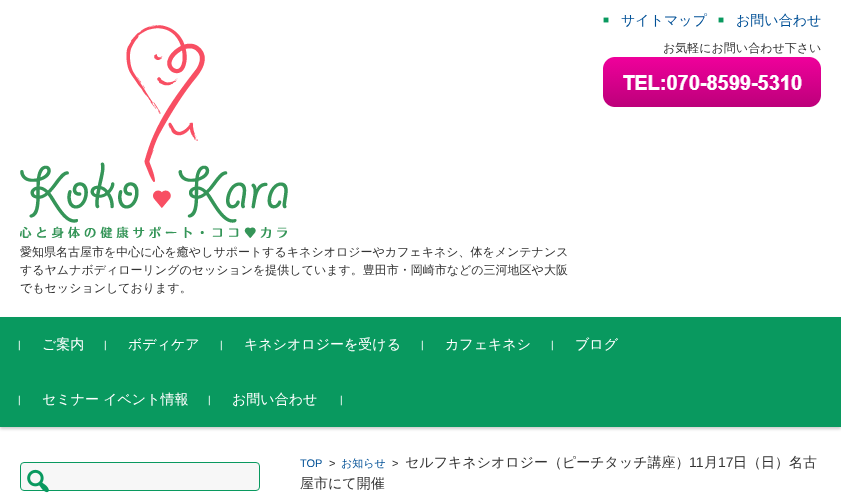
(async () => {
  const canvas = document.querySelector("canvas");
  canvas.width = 841;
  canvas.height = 502;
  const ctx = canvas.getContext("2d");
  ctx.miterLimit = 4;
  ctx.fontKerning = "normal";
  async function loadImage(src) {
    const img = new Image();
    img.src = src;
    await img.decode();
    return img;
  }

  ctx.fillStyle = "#ffffff";
  ctx.fillRect(0, 0, 841, 502);
  ctx.drawImage(await loadImage("img/1.png"), 603, 57, 218, 50);
  ctx.drawImage(await loadImage("img/2.png"), 20, 25, 268, 213);
  ctx.fillStyle = "rgba(0, 0, 0, 0.2)";
  ctx.filter = "blur(1.5px)";
  ctx.beginPath();
  ctx.rect(0, 319, 841, 110);
  ctx.fill();
  ctx.filter = "none";
  ctx.fillStyle = "#09995f";
  ctx.fillRect(0, 317, 841, 110);
  ctx.fillStyle = "#f7f7f7";
  ctx.beginPath();
  ctx.roundRect(20.5, 462.5, 239, 28, 3.5);
  ctx.fill();
  ctx.strokeStyle = "#09995f";
  ctx.stroke();
  ctx.drawImage(await loadImage("img/3.png"), 27, 469, 22, 24);
  ctx.font = "10px Liberation Sans";
  ctx.fillStyle = "#09995f";
  ctx.fillText("■", 603, 23);
  ctx.font = "500 14px WenQuanYi Zen Hei";
  ctx.fillStyle = "#005096";
  ctx.fillText("サイトマップ", 621, 25);
  ctx.font = "10px Liberation Sans";
  ctx.fillStyle = "#09995f";
  ctx.fillText("■", 718, 23);
  ctx.font = "500 14px WenQuanYi Zen Hei";
  ctx.fillStyle = "#005096";
  ctx.fillText("お問い合わせ", 736, 25);
  ctx.font = "500 12px WenQuanYi Zen Hei";
  ctx.fillStyle = "#333333";
  for (const [text, x, y] of [
    ["お気軽にお問い合わせ下さい", 663, 52],
    ["愛知県名古屋市を中心に心を癒やしサポートするキネシオロジーやカフェキネシ、体をメンテナンス", 20, 256],
    ["するヤムナボディローリングのセッションを提供しています。豊田市・岡崎市などの三河地区や大阪", 20, 274],
    ["でもセッションしております。", 20, 292],
  ]) {
    ctx.fillText(text, x, y);
  }
  ctx.font = "10px Liberation Sans";
  ctx.fillStyle = "#ffffff";
  ctx.fillText("|", 18, 348);
  ctx.font = "500 14px WenQuanYi Zen Hei";
  ctx.fillText("ご案内", 42, 349);
  ctx.font = "10px Liberation Sans";
  ctx.fillText("|", 104, 348);
  ctx.font = "500 14px WenQuanYi Zen Hei";
  ctx.fillText("ボディケア", 128, 349);
  ctx.font = "10px Liberation Sans";
  ctx.fillText("|", 220, 348);
  ctx.font = "500 14px WenQuanYi Zen Hei";
  ctx.fillText("キネシオロジーを受ける", 244, 349);
  ctx.font = "10px Liberation Sans";
  ctx.fillText("|", 421, 348);
  ctx.font = "500 14px WenQuanYi Zen Hei";
  ctx.fillText("カフェキネシ", 445, 349);
  ctx.font = "10px Liberation Sans";
  ctx.fillText("|", 551, 348);
  ctx.font = "500 14px WenQuanYi Zen Hei";
  ctx.fillText("ブログ", 575, 349);
  ctx.font = "10px Liberation Sans";
  ctx.fillText("|", 18, 403);
  ctx.font = "500 14px WenQuanYi Zen Hei";
  ctx.fillText("セミナー イベント情報", 42, 404);
  ctx.font = "10px Liberation Sans";
  ctx.fillText("|", 208, 403);
  ctx.font = "500 14px WenQuanYi Zen Hei";
  ctx.fillText("お問い合わせ", 232, 404);
  ctx.font = "10px Liberation Sans";
  ctx.fillText("|", 340, 403);
  ctx.font = "11px Liberation Sans";
  ctx.fillStyle = "#005096";
  ctx.fillText("TOP", 300, 467);
  ctx.fillStyle = "#333333";
  ctx.fillText(">", 329, 467);
  ctx.font = "500 11px WenQuanYi Zen Hei";
  ctx.fillStyle = "#005096";
  ctx.fillText("お知らせ", 341, 467);
  ctx.font = "11px Liberation Sans";
  ctx.fillStyle = "#333333";
  ctx.fillText(">", 392, 467);
  ctx.font = "500 14px WenQuanYi Zen Hei";
  ctx.fillText("セルフキネシオロジー（ピーチタッチ講座）", 405, 467);
  ctx.font = "14px Liberation Sans";
  ctx.fillText("11", 689, 467);
  ctx.font = "500 14px WenQuanYi Zen Hei";
  ctx.fillText("月", 704, 467);
  ctx.font = "14px Liberation Sans";
  ctx.fillText("17", 718, 467);
  ctx.font = "500 14px WenQuanYi Zen Hei";
  ctx.fillText("日（日）名古", 733, 467);
  ctx.fillText("屋市にて開催", 300, 488);
})();
